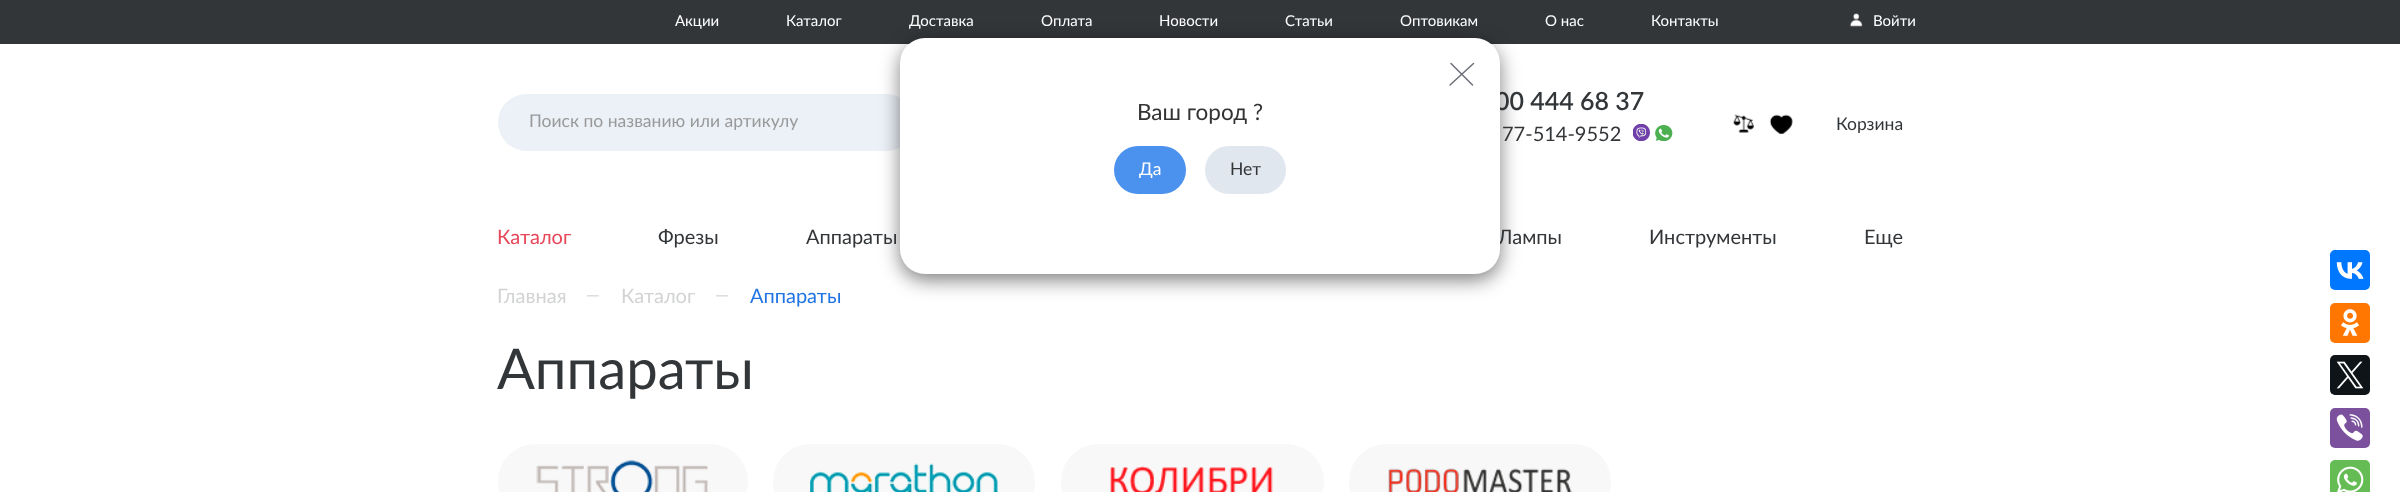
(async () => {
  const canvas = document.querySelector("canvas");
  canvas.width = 2400;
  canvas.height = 492;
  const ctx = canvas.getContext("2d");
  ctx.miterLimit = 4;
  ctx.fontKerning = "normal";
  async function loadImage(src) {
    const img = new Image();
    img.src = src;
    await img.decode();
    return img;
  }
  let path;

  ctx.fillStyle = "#ffffff";
  ctx.fillRect(0, 0, 2400, 492);
  ctx.fillStyle = "#333639";
  ctx.fillRect(0, 0, 2400, 44);
  ctx.drawImage(await loadImage("img/1.png"), 1849, 13, 14, 14);
  ctx.fillStyle = "#ecf1f7";
  ctx.beginPath();
  ctx.roundRect(498, 94, 417, 57, 28.5);
  ctx.fill();
  ctx.drawImage(await loadImage("img/2.png"), 1633, 124, 17, 17);
  ctx.drawImage(await loadImage("img/3.png"), 1655, 125, 18, 16);
  ctx.drawImage(await loadImage("img/4.png"), 1733, 114, 21, 19);
  ctx.drawImage(await loadImage("img/5.png"), 1769, 114, 24, 20);
  ctx.fillStyle = "rgba(0, 0, 0, 0.5)";
  ctx.filter = "blur(9.5px)";
  ctx.beginPath();
  ctx.roundRect(900, 44, 600, 236, 25);
  ctx.fill();
  ctx.filter = "none";
  ctx.fillStyle = "#f8f8f8";
  ctx.beginPath();
  ctx.roundRect(498, 444, 250, 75, 37.5);
  ctx.fill();
  ctx.drawImage(await loadImage("img/6.png"), 536, 459, 172, 33);
  ctx.beginPath();
  ctx.roundRect(773, 444, 262, 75, 37.5);
  ctx.fill();
  ctx.drawImage(await loadImage("img/7.png"), 810, 463, 188, 29);
  ctx.beginPath();
  ctx.roundRect(1061, 444, 263, 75, 37.5);
  ctx.fill();
  ctx.drawImage(await loadImage("img/8.png"), 1110, 466, 163, 26);
  ctx.beginPath();
  ctx.roundRect(1349, 444, 262, 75, 37.5);
  ctx.fill();
  ctx.drawImage(await loadImage("img/9.png"), 1388, 468, 184, 24);
  ctx.fillStyle = "#0077ff";
  ctx.beginPath();
  ctx.roundRect(2330, 250, 40, 40, 5);
  ctx.fill();
  ctx.drawImage(await loadImage("img/10.png"), 2336, 262, 28, 17);
  ctx.fillStyle = "#ff7700";
  ctx.beginPath();
  ctx.roundRect(2330, 303, 40, 40, 5);
  ctx.fill();
  ctx.drawImage(await loadImage("img/11.png"), 2341, 309, 18, 27);
  ctx.fillStyle = "#0f1419";
  ctx.beginPath();
  ctx.roundRect(2330, 355, 40, 40, 5);
  ctx.fill();
  ctx.drawImage(await loadImage("img/12.png"), 2336, 361, 28, 28);
  ctx.fillStyle = "#7b519d";
  ctx.beginPath();
  ctx.roundRect(2330, 408, 40, 40, 5);
  ctx.fill();
  ctx.drawImage(await loadImage("img/13.png"), 2336, 414, 27, 27);
  ctx.fillStyle = "#65bc54";
  ctx.beginPath();
  ctx.roundRect(2330, 460, 40, 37, 5);
  ctx.fill();
  ctx.drawImage(await loadImage("img/14.png"), 2337, 466, 27, 26);
  ctx.font = "15px Lato";
  ctx.fillStyle = "#ffffff";
  for (const [text, x, y] of [
    ["Акции", 675, 26],
    ["Каталог", 786, 26],
    ["Доставка", 909, 26],
    ["Оплата", 1041, 26],
    ["Новости", 1159, 26],
    ["Статьи", 1285, 26],
    ["Оптовикам", 1400, 26],
    ["О нас", 1545, 26],
    ["Контакты", 1651, 26],
    ["Войти", 1873, 26],
  ]) {
    ctx.fillText(text, x, y);
  }
  ctx.font = "17.5px Lato";
  ctx.fillStyle = "#999999";
  ctx.fillText("Поиск по названию или артикулу", 529, 127);
  ctx.font = "600 25px Lato";
  ctx.fillStyle = "#333639";
  ctx.fillText("00 444 68 37", 1495, 110);
  ctx.font = "20px Lato";
  ctx.fillText("77-514-9552", 1502, 141);
  ctx.font = "17.5px Lato";
  ctx.fillText("Корзина", 1836, 130);
  ctx.font = "20px Lato";
  ctx.fillStyle = "#e6475a";
  ctx.fillText("Каталог", 497, 244);
  ctx.fillStyle = "#333639";
  for (const [text, x, y] of [
    ["Фрезы", 658, 244],
    ["Аппараты", 806, 244],
    ["Лампы", 1498, 244],
    ["Инструменты", 1649, 244],
    ["Еще", 1864, 244],
  ]) {
    ctx.fillText(text, x, y);
  }
  ctx.fillStyle = "#ffffff";
  ctx.beginPath();
  ctx.roundRect(900, 38, 600, 236, 25);
  ctx.fill();
  path = new Path2D("M1451 63.5L1472.5 85M1450 85L1473.5 63.5");
  ctx.strokeStyle = "#6c6f76";
  ctx.lineWidth = 1.5;
  ctx.lineCap = "round";
  ctx.stroke(path);
  ctx.font = "22.5px Lato";
  ctx.fillStyle = "#333333";
  ctx.fillText("Ваш город ?", 1137, 120);
  ctx.fillStyle = "#4b91ee";
  ctx.beginPath();
  ctx.roundRect(1114, 146, 72, 48, 24);
  ctx.fill();
  ctx.font = "17.5px Lato";
  ctx.fillStyle = "#ffffff";
  ctx.fillText("Да", 1139, 175);
  ctx.fillStyle = "#e0e7ee";
  ctx.beginPath();
  ctx.roundRect(1205, 146, 81, 48, 24);
  ctx.fill();
  ctx.fillStyle = "#333639";
  ctx.fillText("Нет", 1230, 175);
  ctx.font = "20px Lato";
  ctx.fillStyle = "#d2d3d3";
  ctx.fillText("Главная", 497, 303);
  ctx.font = "17.5px Lato";
  ctx.fillText("—", 586, 301);
  ctx.font = "20px Lato";
  ctx.fillText("Каталог", 621, 303);
  ctx.font = "17.5px Lato";
  ctx.fillText("—", 715, 301);
  ctx.font = "20px Lato";
  ctx.fillStyle = "#2174e3";
  ctx.fillText("Аппараты", 750, 303);
  ctx.font = "56.25px Lato";
  ctx.fillStyle = "#333639";
  ctx.fillText("Аппараты", 497, 389);
})();
